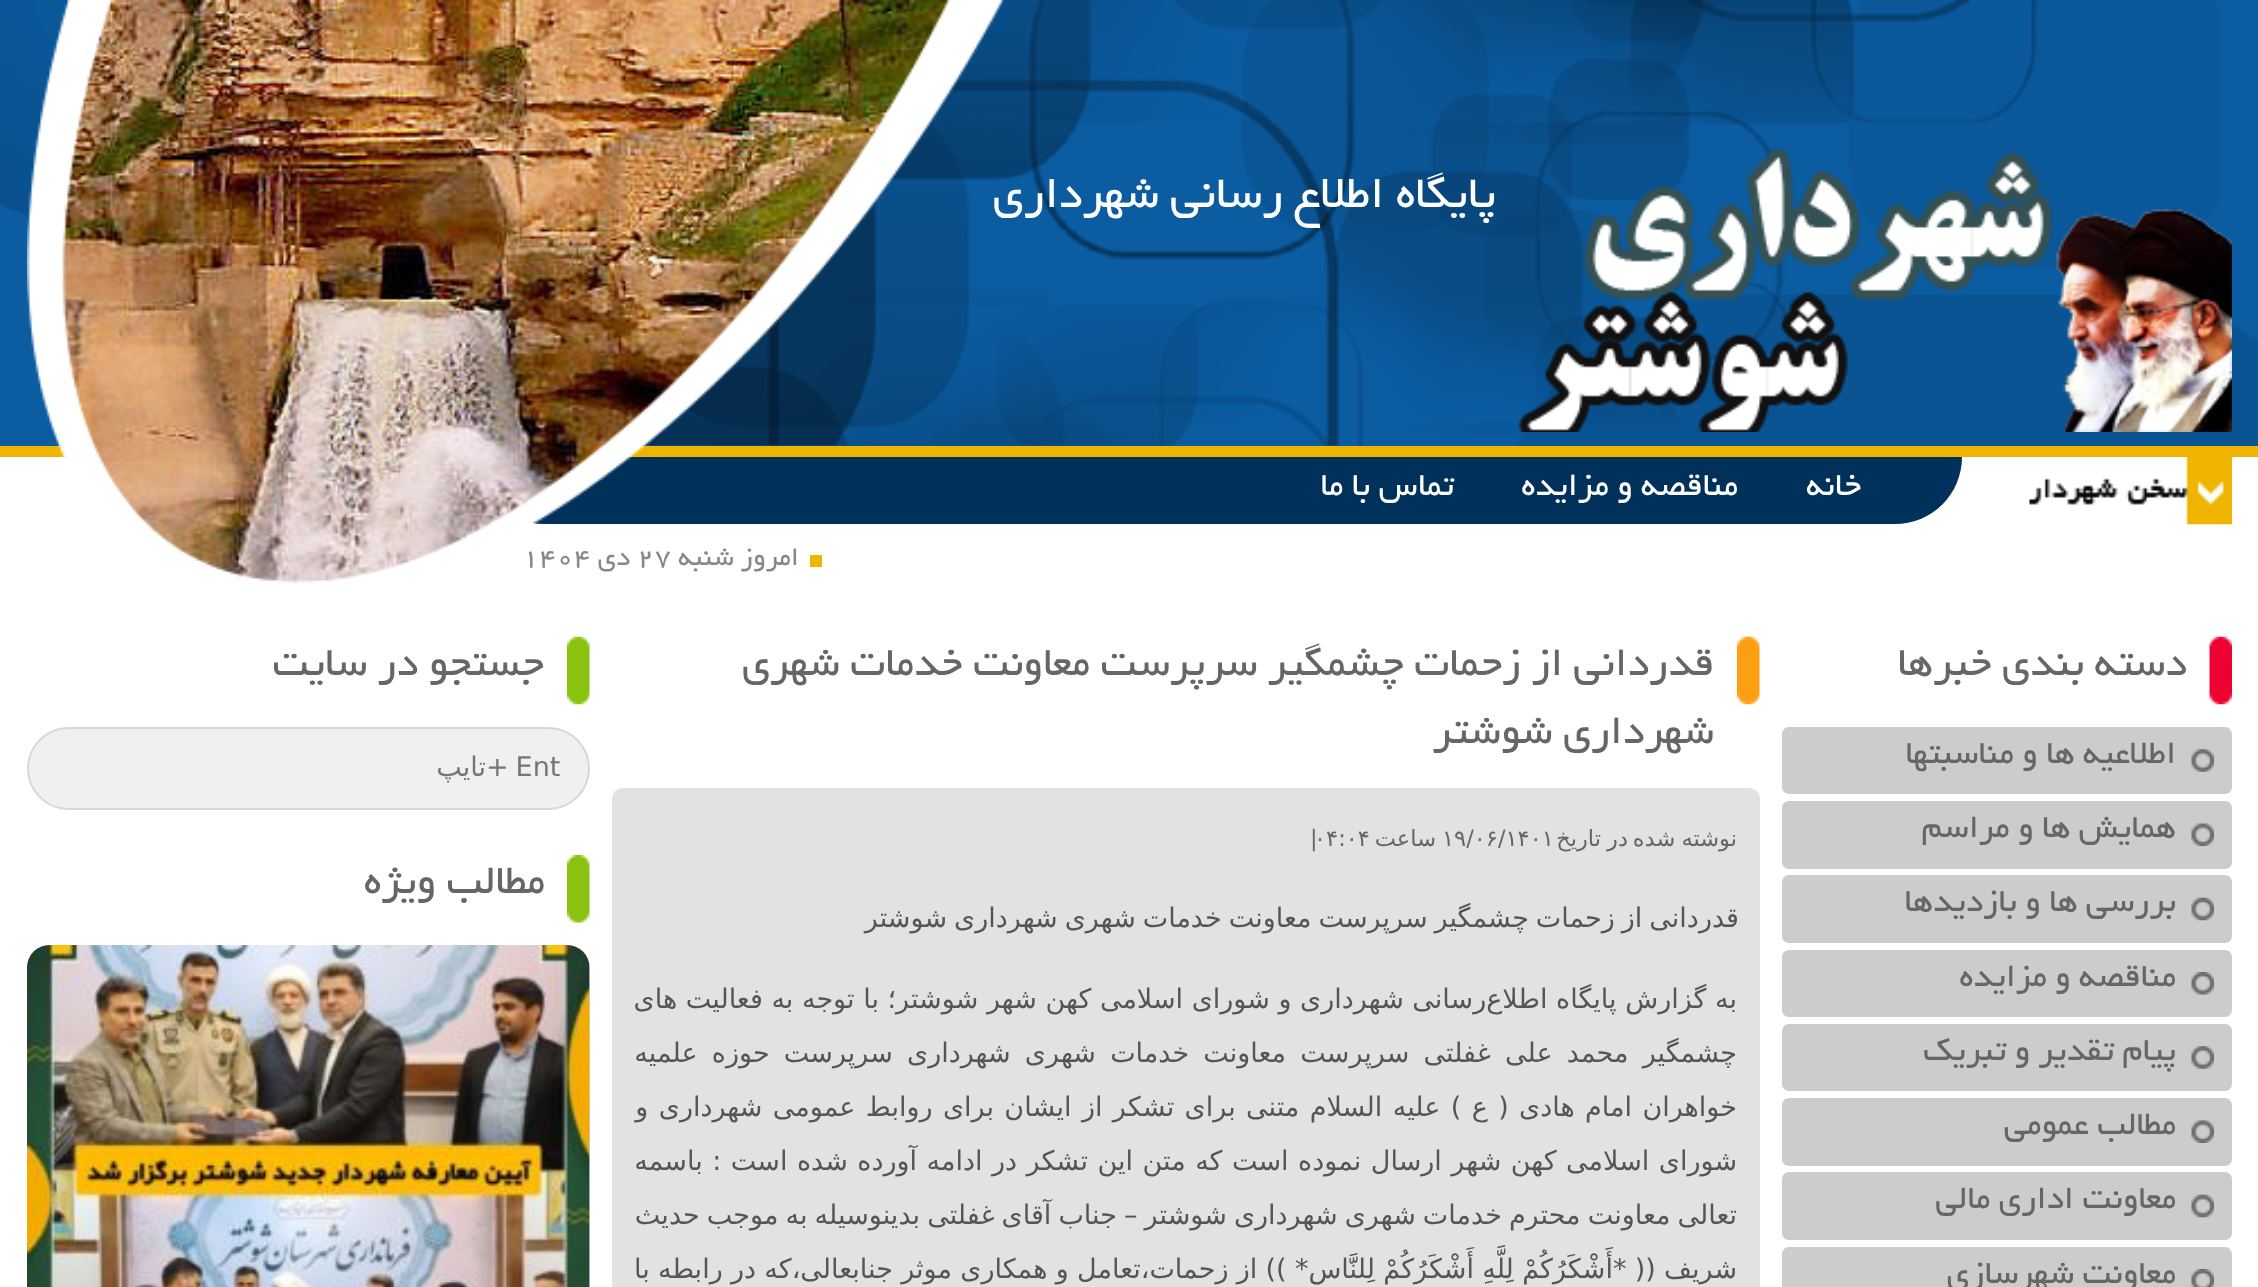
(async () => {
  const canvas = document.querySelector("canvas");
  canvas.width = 2258;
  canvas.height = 1287;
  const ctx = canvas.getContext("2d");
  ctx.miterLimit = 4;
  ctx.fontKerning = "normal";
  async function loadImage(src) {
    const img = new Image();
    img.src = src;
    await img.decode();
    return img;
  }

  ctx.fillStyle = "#ffffff";
  ctx.fillRect(0, 0, 2258, 1287);
  ctx.fillStyle = "#0b5ca1";
  ctx.fillRect(0, 0, 2258, 446);
  ctx.drawImage(await loadImage("img/1.png"), 0, 0, 2258, 446);
  ctx.drawImage(await loadImage("img/2.png"), 1518, 148, 714, 284);
  ctx.fillStyle = "#efb400";
  ctx.fillRect(0, 446, 2258, 11);
  ctx.drawImage(await loadImage("img/4.png"), 2029, 457, 203, 68);
  ctx.fillStyle = "#00315a";
  ctx.beginPath();
  ctx.roundRect(477, 457, 1485, 67, [0, 0, 67, 67]);
  ctx.fill();
  ctx.fillStyle = "#efb400";
  ctx.fillRect(810, 555, 12, 12);
  ctx.drawImage(await loadImage("img/5.png"), 2209, 636, 23, 69);
  ctx.fillStyle = "#cccccc";
  ctx.beginPath();
  ctx.roundRect(1782, 727, 450, 67, 7);
  ctx.fill();
  ctx.drawImage(await loadImage("img/6.png"), 2191, 749, 23, 23);
  ctx.beginPath();
  ctx.roundRect(1782, 801, 450, 68, 7);
  ctx.fill();
  ctx.drawImage(await loadImage("img/7.png"), 2191, 823, 23, 23);
  ctx.beginPath();
  ctx.roundRect(1782, 875, 450, 68, 7);
  ctx.fill();
  ctx.drawImage(await loadImage("img/8.png"), 2191, 897, 23, 24);
  ctx.beginPath();
  ctx.roundRect(1782, 950, 450, 67, 7);
  ctx.fill();
  ctx.drawImage(await loadImage("img/9.png"), 2191, 972, 23, 23);
  ctx.beginPath();
  ctx.roundRect(1782, 1024, 450, 67, 7);
  ctx.fill();
  ctx.drawImage(await loadImage("img/6.png"), 2191, 1046, 23, 23);
  ctx.beginPath();
  ctx.roundRect(1782, 1098, 450, 68, 7);
  ctx.fill();
  ctx.drawImage(await loadImage("img/10.png"), 2191, 1120, 23, 23);
  ctx.beginPath();
  ctx.roundRect(1782, 1172, 450, 68, 7);
  ctx.fill();
  ctx.drawImage(await loadImage("img/8.png"), 2191, 1194, 23, 24);
  ctx.beginPath();
  ctx.roundRect(1782, 1247, 450, 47, 7);
  ctx.fill();
  ctx.drawImage(await loadImage("img/11.png"), 2191, 1269, 23, 18);
  ctx.drawImage(await loadImage("img/12.png"), 1737, 636, 23, 69);
  ctx.fillStyle = "#e2e2e2";
  ctx.beginPath();
  ctx.roundRect(612, 788, 1148, 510, 11);
  ctx.fill();
  ctx.drawImage(await loadImage("img/13.png"), 567, 636, 23, 69);
  ctx.fillStyle = "#f0f0f0";
  ctx.beginPath();
  ctx.roundRect(27, 727, 563, 83, 41.5);
  ctx.fill();
  ctx.beginPath();
  ctx.roundRect(28, 728, 561, 81, 40.5);
  ctx.strokeStyle = "rgba(0, 0, 0, 0.1)";
  ctx.lineWidth = 2;
  ctx.stroke();
  ctx.drawImage(await loadImage("img/14.png"), 567, 855, 23, 68);
  ctx.fillStyle = "#cccccc";
  ctx.beginPath();
  ctx.roundRect(27, 945, 563, 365, 23);
  ctx.fill();
  ctx.drawImage(await loadImage("img/15.png"), 27, 945, 563, 342);
  ctx.direction = "rtl";
  ctx.font = "49.5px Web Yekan";
  ctx.fillStyle = "#ffffff";
  ctx.fillText("پایگاه اطلاع رسانی شهرداری", 1496, 207);
  ctx.font = "36px Web Yekan";
  for (const [text, x, y] of [
    ["خانه", 1861, 495],
    ["مناقصه و مزایده", 1738, 495],
    ["تماس با ما", 1454, 495],
  ]) {
    ctx.fillText(text, x, y);
  }
  ctx.font = "29.25px Web Yekan";
  ctx.fillStyle = "#888888";
  ctx.fillText("امروز شنبه", 799, 565);
  ctx.direction = "ltr";
  ctx.fillText("۲۷", 637, 565);
  ctx.direction = "rtl";
  ctx.fillText("دی", 630, 565);
  ctx.direction = "ltr";
  ctx.fillText("۱۴۰۴", 522, 565);
  ctx.drawImage(await loadImage("img/3.png"), 27, 0, 977, 584);
  ctx.direction = "rtl";
  ctx.font = "45px Web Yekan";
  ctx.fillStyle = "#666666";
  ctx.fillText("دسته بندی خبرها", 2187, 675);
  ctx.font = "36px Web Yekan";
  for (const [text, x, y] of [
    ["اطلاعیه ها و مناسبتها", 2176, 763],
    ["همایش ها و مراسم", 2176, 837],
    ["بررسی ها و بازدیدها", 2176, 911],
    ["مناقصه و مزایده", 2176, 986],
    ["پیام تقدیر و تبریک", 2176, 1060],
    ["مطالب عمومی", 2176, 1134],
    ["معاونت اداري مالي", 2176, 1208],
    ["معاونت شهرسازي", 2176, 1283],
  ]) {
    ctx.fillText(text, x, y);
  }
  ctx.font = "45px Web Yekan";
  ctx.fillText("قدردانی از زحمات چشمگیر سرپرست معاونت خدمات شهری", 1714, 675);
  ctx.fillText("شهرداری شوشتر", 1714, 743);
  ctx.wordSpacing = "-1px";
  ctx.font = "22.5px DejaVu Sans";
  ctx.fillText("نوشته شده", 1737, 846);
  ctx.fillText("در تاریخ", 1628, 846);
  ctx.wordSpacing = "0px";
  ctx.direction = "ltr";
  ctx.fillText("۱۹/۰۶/۱۴۰۱", 1442, 846);
  ctx.direction = "rtl";
  ctx.fillText("ساعت", 1436, 846);
  ctx.direction = "ltr";
  ctx.fillText("۰۴:۰۴", 1314, 846);
  ctx.fillText("|", 1310, 846);
  ctx.wordSpacing = "-1.6px";
  ctx.direction = "rtl";
  ctx.font = "27px DejaVu Sans";
  ctx.fillStyle = "#555555";
  ctx.fillText("قدردانی از زحمات چشمگیر سرپرست معاونت خدمات شهری شهرداری شوشتر", 1739, 927);
  ctx.wordSpacing = "0px";
  ctx.fillText("به گزارش پایگاه اطلاع‌رسانی شهرداری و شورای اسلامی کهن شهر شوشتر؛ با توجه به فعالیت های", 1737, 1008);
  ctx.wordSpacing = "5.6px";
  ctx.fillText("چشمگیر محمد علی غفلتی سرپرست معاونت خدمات شهری شهرداری سرپرست حوزه علمیه", 1737, 1062);
  ctx.wordSpacing = "1.8px";
  ctx.fillText("خواهران امام هادی ( ع ) علیه السلام متنی برای تشکر از ایشان برای روابط عمومی شهرداری و", 1737, 1116);
  ctx.wordSpacing = "0.9px";
  ctx.fillText("شورای اسلامی کهن شهر ارسال نموده است که متن این تشکر در ادامه آورده شده است : باسمه", 1737, 1170);
  ctx.wordSpacing = "-1.5px";
  ctx.fillText("تعالی معاونت محترم خدمات شهری شهرداری شوشتر – جناب آقای غفلتی بدینوسیله به موجب حدیث", 1737, 1224);
  ctx.wordSpacing = "-0.3px";
  ctx.fillText("شریف (( *أَشْکَرُکُمْ لِلَّهِ أَشْکَرُکُمْ لِلنَّاس* )) از زحمات،تعامل و همکاری موثر جنابعالی،که در رابطه با", 1737, 1278);
  ctx.wordSpacing = "0px";
  ctx.font = "45px Web Yekan";
  ctx.fillStyle = "#666666";
  ctx.fillText("جستجو در سایت", 544, 675);
  ctx.wordSpacing = "-1.6px";
  ctx.direction = "ltr";
  ctx.font = "27px DejaVu Sans";
  ctx.fillStyle = "#757575";
  ctx.fillText("+ Ent", 486, 776);
  ctx.wordSpacing = "0px";
  ctx.direction = "rtl";
  ctx.fillText("تایپ", 486, 776);
  ctx.font = "45px Web Yekan";
  ctx.fillStyle = "#666666";
  ctx.fillText("مطالب ویژه", 545, 893);
})();
